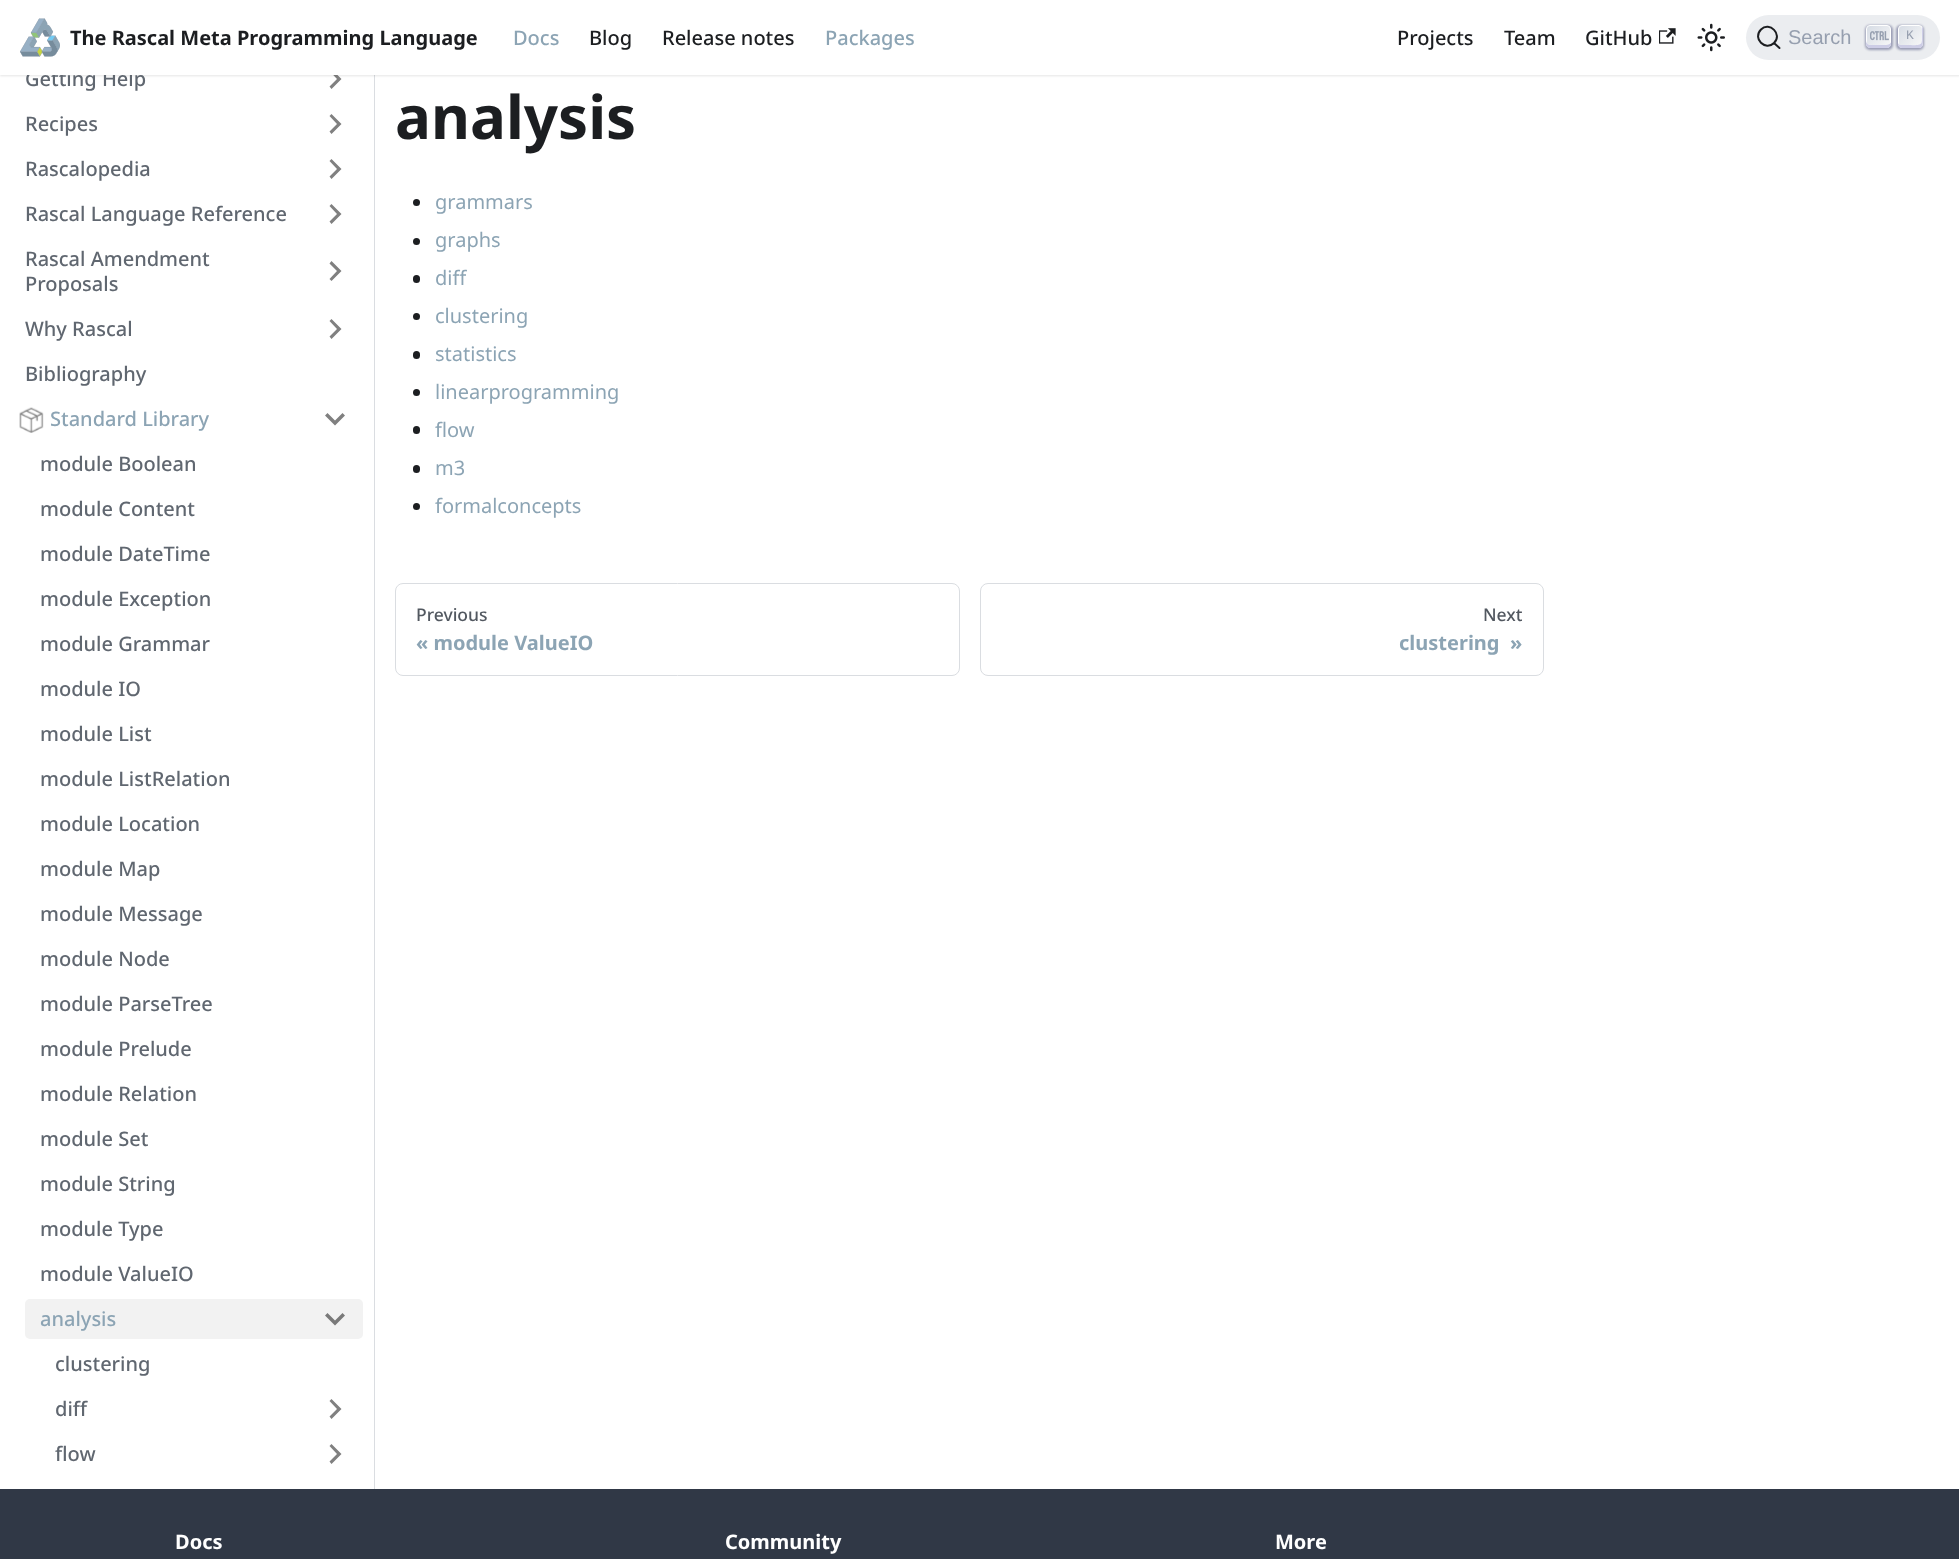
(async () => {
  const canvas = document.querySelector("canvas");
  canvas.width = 1959;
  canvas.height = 1559;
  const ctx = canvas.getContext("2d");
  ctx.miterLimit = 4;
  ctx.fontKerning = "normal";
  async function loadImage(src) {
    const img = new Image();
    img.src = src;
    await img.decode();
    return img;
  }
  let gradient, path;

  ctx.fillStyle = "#ffffff";
  ctx.fillRect(0, 0, 1959, 1559);
  ctx.fillStyle = "#dadde1";
  ctx.fillRect(374, 75, 1, 1414);
  ctx.fillStyle = "#808080";
  path = new Path2D("M329.5 71L337 79L329.5 86.5L331.5 89L341.5 79L331.5 69Z");
  ctx.fill(path);
  ctx.fillStyle = "rgba(0, 0, 0, 0.1)";
  ctx.filter = "blur(1px)";
  ctx.beginPath();
  ctx.rect(0, 1, 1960, 75);
  ctx.fill();
  ctx.filter = "none";
  ctx.fillStyle = "#808080";
  path = new Path2D("M329.5 116L337 124L329.5 131.5L331.5 134L341.5 124L331.5 114Z");
  ctx.fill(path);
  path = new Path2D("M329.5 161L337 169L329.5 176.5L331.5 179L341.5 169L331.5 159Z");
  ctx.fill(path);
  path = new Path2D("M329.5 206L337 214L329.5 221.5L331.5 224L341.5 214L331.5 204Z");
  ctx.fill(path);
  path = new Path2D("M329.5 263.5L337 271L329.5 279L331.5 281L341.5 271L331.5 261Z");
  ctx.fill(path);
  path = new Path2D("M329.5 321L337 329L329.5 336.5L331.5 339L341.5 329L331.5 319Z");
  ctx.fill(path);
  ctx.drawImage(await loadImage("img/5.png"), 19, 407, 25, 26);
  path = new Path2D("M342.5 413L335 420.5L327.5 413L325 415.5L335 425.5L345 415.5Z");
  ctx.fill(path);
  ctx.fillStyle = "#f2f2f2";
  ctx.beginPath();
  ctx.roundRect(25, 1299, 338, 40, 5);
  ctx.fill();
  ctx.fillStyle = "#797979";
  path = new Path2D("M342.5 1313L335 1320.5L327.5 1313L325 1315.5L335 1325.5L345 1315.5Z");
  ctx.fill(path);
  ctx.fillStyle = "#808080";
  path = new Path2D("M329.5 1401L337 1409L329.5 1416.5L331.5 1419L341.5 1409L331.5 1399Z");
  ctx.fill(path);
  path = new Path2D("M329.5 1446L337 1454L329.5 1461.5L331.5 1464L341.5 1454L331.5 1444Z");
  ctx.fill(path);
  ctx.fillStyle = "#1c1e21";
  ctx.beginPath();
  ctx.arc(416.5, 202.5, 3.5, 0, Math.PI * 2);
  ctx.fill();
  ctx.beginPath();
  ctx.arc(416.5, 241.5, 3.5, 0, Math.PI * 2);
  ctx.fill();
  ctx.beginPath();
  ctx.roundRect(413, 275, 7, 8, 3.5);
  ctx.fill();
  ctx.beginPath();
  ctx.arc(416.5, 316.5, 3.5, 0, Math.PI * 2);
  ctx.fill();
  ctx.beginPath();
  ctx.roundRect(413, 351, 7, 8, 3.5);
  ctx.fill();
  ctx.beginPath();
  ctx.arc(416.5, 392.5, 3.5, 0, Math.PI * 2);
  ctx.fill();
  ctx.beginPath();
  ctx.roundRect(413, 426, 7, 8, 3.5);
  ctx.fill();
  ctx.beginPath();
  ctx.roundRect(413, 465, 7, 8, 3.5);
  ctx.fill();
  ctx.beginPath();
  ctx.arc(416.5, 506.5, 3.5, 0, Math.PI * 2);
  ctx.fill();
  ctx.beginPath();
  ctx.roundRect(395.5, 583.5, 564, 92, 7.5);
  ctx.strokeStyle = "#dadde1";
  ctx.stroke();
  ctx.beginPath();
  ctx.roundRect(980.5, 583.5, 563, 92, 7.5);
  ctx.stroke();
  ctx.fillStyle = "#303846";
  ctx.fillRect(0, 1489, 1959, 70);
  ctx.font = "500 20px Noto Sans";
  ctx.fillStyle = "#606770";
  ctx.fillText("Getting Help", 25, 86);
  ctx.fillStyle = "#ffffff";
  ctx.fillRect(0, 0, 1959, 75);
  ctx.fillStyle = "#ebedf0";
  ctx.beginPath();
  ctx.roundRect(1746, 15, 194, 45, 22.5);
  ctx.fill();
  ctx.fillStyle = "rgba(30, 35, 90, 0.4)";
  ctx.filter = "blur(1px)";
  ctx.beginPath();
  ctx.roundRect(1896, 25, 28, 25, 5);
  ctx.fill();
  ctx.filter = "none";
  gradient = ctx.createLinearGradient(1898, 24, 1922, 48);
  gradient.addColorStop(0, "#d5dbe4");
  gradient.addColorStop(1, "#f8f8f8");
  ctx.fillStyle = gradient;
  ctx.beginPath();
  ctx.roundRect(1898.5, 25.5, 24, 22, 3.5);
  ctx.fill();
  ctx.strokeStyle = "#ffffff";
  ctx.stroke();
  ctx.fillStyle = "#cdcde6";
  path = new Path2D("M1922 26.5V34V40.5L1921.5 43C1920 46 1911.5 45 1908.5 45H1903.5C1901 45 1899 45.5 1898 43C1898 48 1900.5 48 1905 48H1910.5C1923.5 48 1923 49.5 1923 36.5C1923 34 1924 28.5 1922 26.5Z");
  ctx.fill(path);
  ctx.font = "13px Liberation Mono";
  ctx.fillStyle = "#969faf";
  ctx.fillText("K", 1906, 39);
  ctx.fillStyle = "rgba(30, 35, 90, 0.4)";
  ctx.filter = "blur(1px)";
  ctx.beginPath();
  ctx.roundRect(1865, 25, 28, 25, 5);
  ctx.fill();
  ctx.filter = "none";
  gradient = ctx.createLinearGradient(1867, 24, 1891, 48);
  gradient.addColorStop(0, "#d5dbe4");
  gradient.addColorStop(1, "#f8f8f8");
  ctx.fillStyle = gradient;
  ctx.beginPath();
  ctx.roundRect(1866.5, 25.5, 24, 22, 3.5);
  ctx.fill();
  ctx.stroke();
  ctx.fillStyle = "#cdcde6";
  path = new Path2D("M1891 42C1890.5 44 1889 45 1885 45H1870C1867 45 1866 42.5 1866 39.5V44C1866 46 1868 48 1870 48H1887C1889 48 1891 46 1891 44Z");
  ctx.fill(path);
  ctx.drawImage(await loadImage("img/4.png"), 1870, 31, 19, 10);
  path = new Path2D("M1774 43L1779.5 48L1774 43C1765.5 51.5 1752 38.5 1761 29.5C1769.5 21 1783 34.5 1774 43Z");
  ctx.strokeStyle = "#1c1e21";
  ctx.lineWidth = 2;
  ctx.lineCap = "round";
  ctx.lineJoin = "round";
  ctx.stroke(path);
  ctx.drawImage(await loadImage("img/3.png"), 1697, 23, 28, 29);
  ctx.drawImage(await loadImage("img/2.png"), 1659, 28, 17, 16);
  ctx.font = "bold 20px Noto Sans";
  ctx.fillStyle = "#1c1e21";
  ctx.fillText("The Rascal Meta Programming Language", 70, 45);
  ctx.font = "20px Liberation Sans";
  ctx.fillStyle = "#969faf";
  ctx.fillText("Search", 1788, 44);
  ctx.font = "500 20px Noto Sans";
  ctx.fillStyle = "#1c1e21";
  for (const [text, x, y] of [
    ["GitHub", 1585, 45],
    ["Team", 1504, 45],
    ["Projects", 1397, 45],
  ]) {
    ctx.fillText(text, x, y);
  }
  ctx.fillStyle = "#8ca4b4";
  ctx.fillText("Packages", 825, 45);
  ctx.fillStyle = "#1c1e21";
  ctx.fillText("Release notes", 662, 45);
  ctx.fillText("Blog", 589, 45);
  ctx.fillStyle = "#8ca4b4";
  ctx.fillText("Docs", 513, 45);
  ctx.drawImage(await loadImage("img/1.png"), 20, 18, 40, 39);
  ctx.fillStyle = "#606770";
  for (const [text, x, y] of [
    ["Recipes", 25, 131],
    ["Rascalopedia", 25, 176],
    ["Rascal Language Reference", 25, 221],
    ["Rascal Amendment", 25, 266],
    ["Proposals", 25, 291],
    ["Why Rascal", 25, 336],
    ["Bibliography", 25, 381],
  ]) {
    ctx.fillText(text, x, y);
  }
  ctx.fillStyle = "#8ca4b4";
  ctx.fillText("Standard Library", 50, 426);
  ctx.fillStyle = "#606770";
  for (const [text, x, y] of [
    ["module Boolean", 40, 471],
    ["module Content", 40, 516],
    ["module DateTime", 40, 561],
    ["module Exception", 40, 606],
    ["module Grammar", 40, 651],
    ["module IO", 40, 696],
    ["module List", 40, 741],
    ["module ListRelation", 40, 786],
    ["module Location", 40, 831],
    ["module Map", 40, 876],
    ["module Message", 40, 921],
    ["module Node", 40, 966],
    ["module ParseTree", 40, 1011],
    ["module Prelude", 40, 1056],
    ["module Relation", 40, 1101],
    ["module Set", 40, 1146],
    ["module String", 40, 1191],
    ["module Type", 40, 1236],
    ["module ValueIO", 40, 1281],
  ]) {
    ctx.fillText(text, x, y);
  }
  ctx.fillStyle = "#8ca4b4";
  ctx.fillText("analysis", 40, 1326);
  ctx.fillStyle = "#606770";
  for (const [text, x, y] of [
    ["clustering", 55, 1371],
    ["diff", 55, 1416],
    ["flow", 55, 1461],
  ]) {
    ctx.fillText(text, x, y);
  }
  ctx.font = "bold 60px Noto Sans";
  ctx.fillStyle = "#1c1e21";
  ctx.fillText("analysis", 395, 139);
  ctx.font = "20px Noto Sans";
  ctx.fillStyle = "#8ca4b4";
  for (const [text, x, y] of [
    ["grammars", 435, 209],
    ["graphs", 435, 247],
    ["diff", 435, 285],
    ["clustering", 435, 323],
    ["statistics", 435, 361],
    ["linearprogramming", 435, 399],
    ["flow", 435, 437],
    ["m3", 435, 475],
    ["formalconcepts", 435, 513],
  ]) {
    ctx.fillText(text, x, y);
  }
  ctx.font = "500 17.5px Noto Sans";
  ctx.fillStyle = "#525860";
  ctx.fillText("Previous", 416, 621);
  ctx.font = "bold 20px Noto Sans";
  ctx.fillStyle = "#8ca4b4";
  ctx.fillText("« module ValueIO", 416, 650);
  ctx.font = "500 17.5px Noto Sans";
  ctx.fillStyle = "#525860";
  ctx.fillText("Next", 1483, 621);
  ctx.font = "bold 20px Noto Sans";
  ctx.fillStyle = "#8ca4b4";
  ctx.fillText("clustering", 1399, 650);
  ctx.fillText("»", 1510, 650);
  ctx.fillStyle = "#ffffff";
  for (const [text, x, y] of [
    ["Docs", 175, 1549],
    ["Community", 725, 1549],
    ["More", 1275, 1549],
  ]) {
    ctx.fillText(text, x, y);
  }
})();
